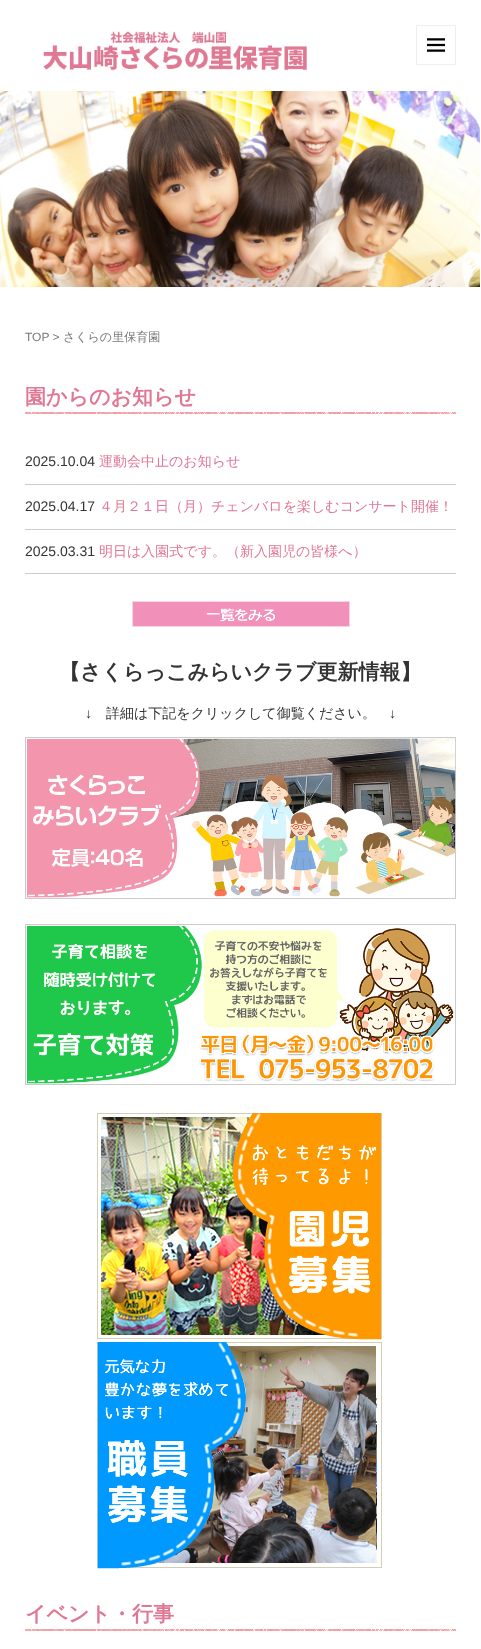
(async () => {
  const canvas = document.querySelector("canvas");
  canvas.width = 481;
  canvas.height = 1649;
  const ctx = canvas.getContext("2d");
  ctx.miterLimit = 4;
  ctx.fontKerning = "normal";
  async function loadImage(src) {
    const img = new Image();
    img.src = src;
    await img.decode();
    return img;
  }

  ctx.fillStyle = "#ffffff";
  ctx.fillRect(0, 0, 481, 1649);
  ctx.drawImage(await loadImage("img/1.png"), 43, 31, 264, 40);
  ctx.strokeStyle = "#eeeeee";
  ctx.strokeRect(416.5, 25.5, 39, 39);
  ctx.drawImage(await loadImage("img/2.png"), 427, 38, 18, 14);
  ctx.drawImage(await loadImage("img/3.png"), 0, 91, 480, 196);
  ctx.drawImage(await loadImage("img/4.png"), 25, 411, 431, 4);
  for (const [x, y, w, h, color] of [
    [25, 484, 431, 1, "#cccccc"],
    [25, 529, 431, 1, "#cccccc"],
    [25, 573, 431, 1, "#cccccc"],
  ]) {
    ctx.fillStyle = color;
    ctx.fillRect(x, y, w, h);
  }
  ctx.drawImage(await loadImage("img/5.png"), 132, 601, 218, 26);
  ctx.drawImage(await loadImage("img/6.png"), 25, 737, 431, 162);
  ctx.drawImage(await loadImage("img/7.png"), 25, 924, 431, 161);
  ctx.drawImage(await loadImage("img/8.png"), 97, 1113, 285, 227);
  ctx.drawImage(await loadImage("img/9.png"), 95, 1341, 287, 229);
  ctx.drawImage(await loadImage("img/4.png"), 25, 1628, 431, 4);
  ctx.font = "12px Liberation Sans";
  ctx.fillStyle = "#777777";
  ctx.fillText("TOP >", 25, 341);
  ctx.font = "500 12px WenQuanYi Zen Hei";
  ctx.fillText("さくらの里保育園", 63, 341);
  ctx.font = "bold 21px WenQuanYi Zen Hei";
  ctx.fillStyle = "#e07795";
  ctx.fillText("園からのお知らせ", 25, 404);
  ctx.font = "14px Liberation Sans";
  ctx.fillStyle = "#333333";
  ctx.fillText("2025.10.04", 25, 466);
  ctx.font = "500 14px WenQuanYi Zen Hei";
  ctx.fillStyle = "#e07795";
  ctx.fillText("運動会中止のお知らせ", 99, 466);
  ctx.font = "14px Liberation Sans";
  ctx.fillStyle = "#333333";
  ctx.fillText("2025.04.17", 25, 511);
  ctx.font = "500 14px WenQuanYi Zen Hei";
  ctx.fillStyle = "#e07795";
  ctx.fillText("４月２１日（月）チェンバロを楽しむコンサート開催！", 99, 511);
  ctx.font = "14px Liberation Sans";
  ctx.fillStyle = "#333333";
  ctx.fillText("2025.03.31", 25, 556);
  ctx.font = "500 14px WenQuanYi Zen Hei";
  ctx.fillStyle = "#e07795";
  ctx.fillText("明日は入園式です。（新入園児の皆様へ）", 99, 556);
  ctx.font = "bold 21px WenQuanYi Zen Hei";
  ctx.fillStyle = "#333333";
  ctx.fillText("【さくらっこみらいクラブ更新情報】", 59, 679);
  ctx.font = "14px Liberation Sans";
  ctx.fillText("↓", 85, 718);
  ctx.font = "500 14px WenQuanYi Zen Hei";
  ctx.fillText("詳細は下記をクリックして御覧ください。", 106, 718);
  ctx.font = "14px Liberation Sans";
  ctx.fillText("↓", 389, 718);
  ctx.font = "bold 21px WenQuanYi Zen Hei";
  ctx.fillStyle = "#e07795";
  ctx.fillText("イベント・行事", 25, 1621);
})();
